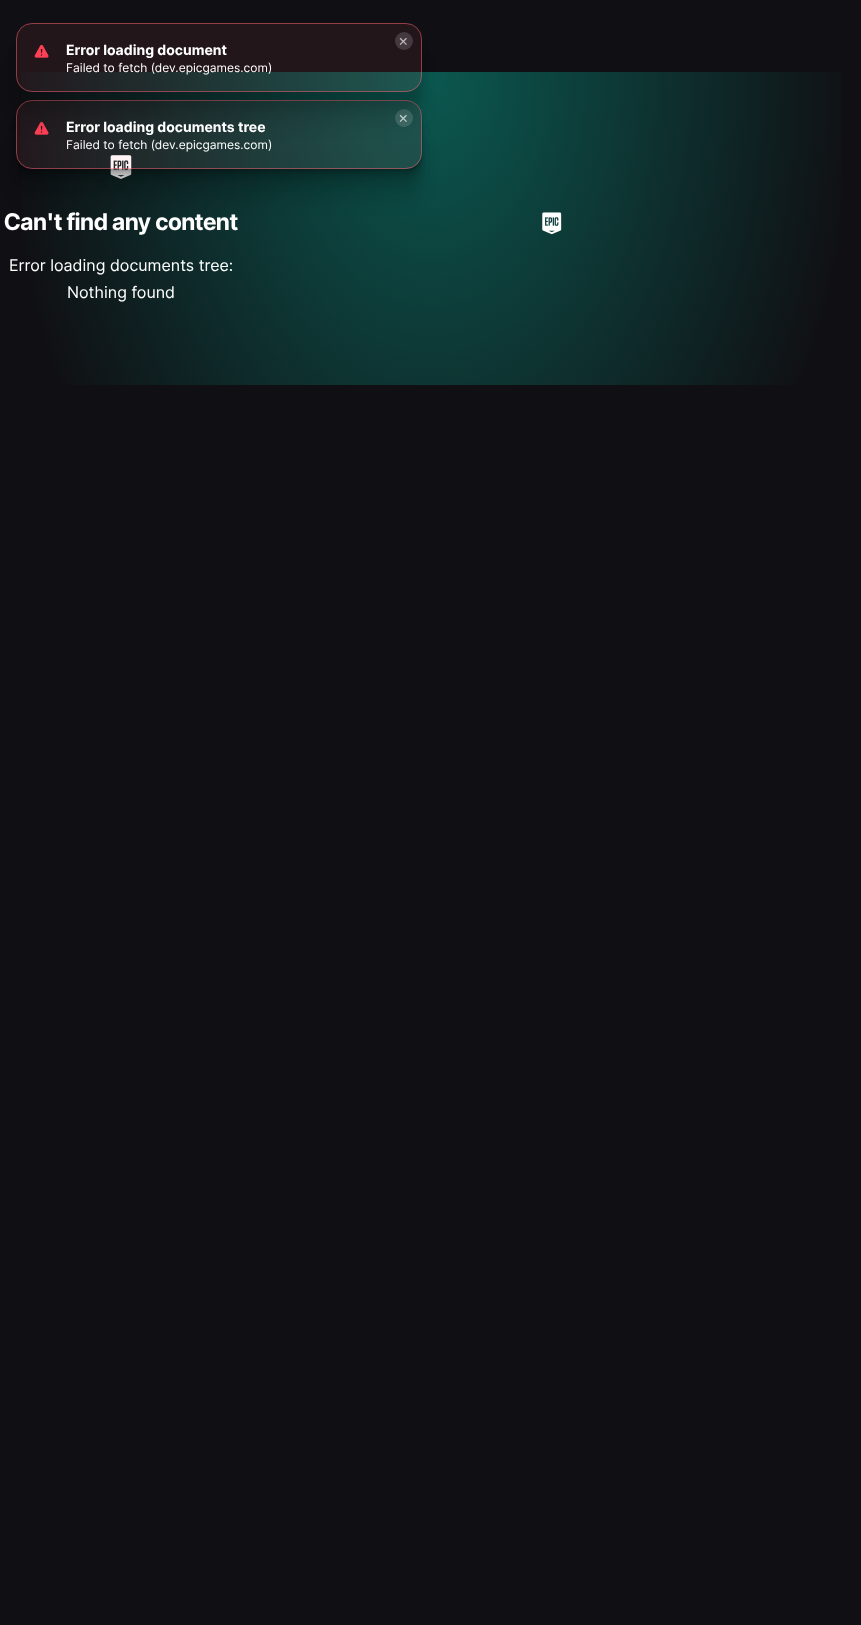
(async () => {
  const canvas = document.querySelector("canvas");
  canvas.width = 861;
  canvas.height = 1625;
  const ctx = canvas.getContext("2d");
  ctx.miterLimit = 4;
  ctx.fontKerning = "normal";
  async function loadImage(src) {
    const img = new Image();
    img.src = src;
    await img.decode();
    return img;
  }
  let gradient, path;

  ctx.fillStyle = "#101014";
  ctx.fillRect(0, 0, 861, 1625);
  gradient = ctx.createRadialGradient(431, 47.71, 0, 431, 47.71, 609);
  gradient.addColorStop(0, "#0b5850");
  gradient.addColorStop(0.7, "#101014");
  ctx.fillStyle = gradient;
  ctx.beginPath();
  ctx.rect(21, 72, 820, 313);
  ctx.save();
  ctx.clip();
  ctx.scale(1, 919 / 609);
  ctx.fillRect(0, 0, 861, 1077);
  ctx.restore();
  ctx.drawImage(await loadImage("img/3.png"), 110, 155, 22, 24);
  ctx.save();
  path = new Path2D("M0 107H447V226H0ZM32 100H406C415 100 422 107 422 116V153C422 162 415 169 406 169H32C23 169 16 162 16 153V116C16 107 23 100 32 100Z");
  ctx.clip(path, "evenodd");
  ctx.fillStyle = "rgba(0, 0, 0, 0.1)";
  ctx.filter = "blur(8px)";
  ctx.beginPath();
  ctx.roundRect(16, 132, 406, 69, 16);
  ctx.fill();
  ctx.filter = "none";
  ctx.restore();
  ctx.save();
  path = new Path2D("M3 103H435V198H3ZM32 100H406C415 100 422 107 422 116V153C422 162 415 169 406 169H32C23 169 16 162 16 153V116C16 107 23 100 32 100Z");
  ctx.clip(path, "evenodd");
  ctx.fillStyle = "rgba(0, 0, 0, 0.1)";
  ctx.filter = "blur(4px)";
  ctx.beginPath();
  ctx.roundRect(16, 116, 406, 69, 16);
  ctx.fill();
  ctx.filter = "none";
  ctx.restore();
  ctx.save();
  path = new Path2D("M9 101H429V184H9ZM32 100H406C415 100 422 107 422 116V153C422 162 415 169 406 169H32C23 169 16 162 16 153V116C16 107 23 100 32 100Z");
  ctx.clip(path, "evenodd");
  ctx.fillStyle = "rgba(0, 0, 0, 0.1)";
  ctx.filter = "blur(2px)";
  ctx.beginPath();
  ctx.roundRect(16, 108, 406, 69, 16);
  ctx.fill();
  ctx.filter = "none";
  ctx.restore();
  ctx.save();
  path = new Path2D("M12 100H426V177H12ZM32 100H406C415 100 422 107 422 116V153C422 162 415 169 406 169H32C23 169 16 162 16 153V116C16 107 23 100 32 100Z");
  ctx.clip(path, "evenodd");
  ctx.fillStyle = "rgba(0, 0, 0, 0.1)";
  ctx.filter = "blur(1px)";
  ctx.beginPath();
  ctx.roundRect(16, 104, 406, 69, 16);
  ctx.fill();
  ctx.filter = "none";
  ctx.restore();
  ctx.save();
  path = new Path2D("M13 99H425V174H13ZM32 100H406C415 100 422 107 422 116V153C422 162 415 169 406 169H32C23 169 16 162 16 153V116C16 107 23 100 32 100Z");
  ctx.clip(path, "evenodd");
  ctx.fillStyle = "rgba(0, 0, 0, 0.1)";
  ctx.filter = "blur(0.5px)";
  ctx.beginPath();
  ctx.roundRect(16, 102, 406, 69, 16);
  ctx.fill();
  ctx.filter = "none";
  ctx.restore();
  ctx.fillStyle = "rgba(255, 97, 115, 0.08)";
  ctx.beginPath();
  ctx.roundRect(16, 100, 406, 69, 16);
  ctx.fill();
  ctx.beginPath();
  ctx.roundRect(16.5, 100.5, 405, 68, 15.5);
  ctx.strokeStyle = "rgba(255, 97, 115, 0.5)";
  ctx.stroke();
  ctx.fillStyle = "#406c68";
  ctx.beginPath();
  ctx.arc(404, 118, 9, 0, Math.PI * 2);
  ctx.fill();
  ctx.drawImage(await loadImage("img/2.png"), 34, 121, 15, 14);
  ctx.save();
  path = new Path2D("M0 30H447V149H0ZM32 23H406C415 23 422 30 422 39V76C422 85 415 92 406 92H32C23 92 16 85 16 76V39C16 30 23 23 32 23Z");
  ctx.clip(path, "evenodd");
  ctx.fillStyle = "rgba(0, 0, 0, 0.1)";
  ctx.filter = "blur(8px)";
  ctx.beginPath();
  ctx.roundRect(16, 55, 406, 69, 16);
  ctx.fill();
  ctx.filter = "none";
  ctx.restore();
  ctx.save();
  path = new Path2D("M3 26H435V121H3ZM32 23H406C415 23 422 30 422 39V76C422 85 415 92 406 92H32C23 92 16 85 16 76V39C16 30 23 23 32 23Z");
  ctx.clip(path, "evenodd");
  ctx.fillStyle = "rgba(0, 0, 0, 0.1)";
  ctx.filter = "blur(4px)";
  ctx.beginPath();
  ctx.roundRect(16, 39, 406, 69, 16);
  ctx.fill();
  ctx.filter = "none";
  ctx.restore();
  ctx.fillStyle = "rgba(255, 97, 115, 0.08)";
  ctx.beginPath();
  ctx.roundRect(16, 23, 406, 69, 16);
  ctx.fill();
  ctx.beginPath();
  ctx.roundRect(16.5, 23.5, 405, 68, 15.5);
  ctx.stroke();
  ctx.fillStyle = "#44393e";
  ctx.beginPath();
  ctx.arc(404, 41, 9, 0, Math.PI * 2);
  ctx.fill();
  ctx.drawImage(await loadImage("img/1.png"), 34, 44, 15, 14);
  ctx.drawImage(await loadImage("img/4.png"), 542, 212, 20, 23);
  ctx.font = "16px Inter";
  ctx.fillStyle = "#bebabb";
  ctx.fillText("×", 398, 46);
  ctx.font = "bold 14px Inter";
  ctx.fillStyle = "#ffffff";
  ctx.fillText("Error loading document", 66, 55);
  ctx.font = "12px Inter";
  ctx.fillText("Failed to fetch (dev.epicgames.com)", 66, 72);
  ctx.font = "16px Inter";
  ctx.fillStyle = "#bcccca";
  ctx.fillText("×", 398, 123);
  ctx.font = "bold 14px Inter";
  ctx.fillStyle = "#ffffff";
  ctx.fillText("Error loading documents tree", 66, 132);
  ctx.font = "12px Inter";
  ctx.fillText("Failed to fetch (dev.epicgames.com)", 66, 149);
  ctx.font = "bold 23px Inter Tight";
  ctx.fillText("Can't find any content", 4, 230);
  ctx.font = "16px Inter";
  ctx.fillText("Error loading documents tree:", 9, 271);
  ctx.fillText("Nothing found", 67, 298);
})();
